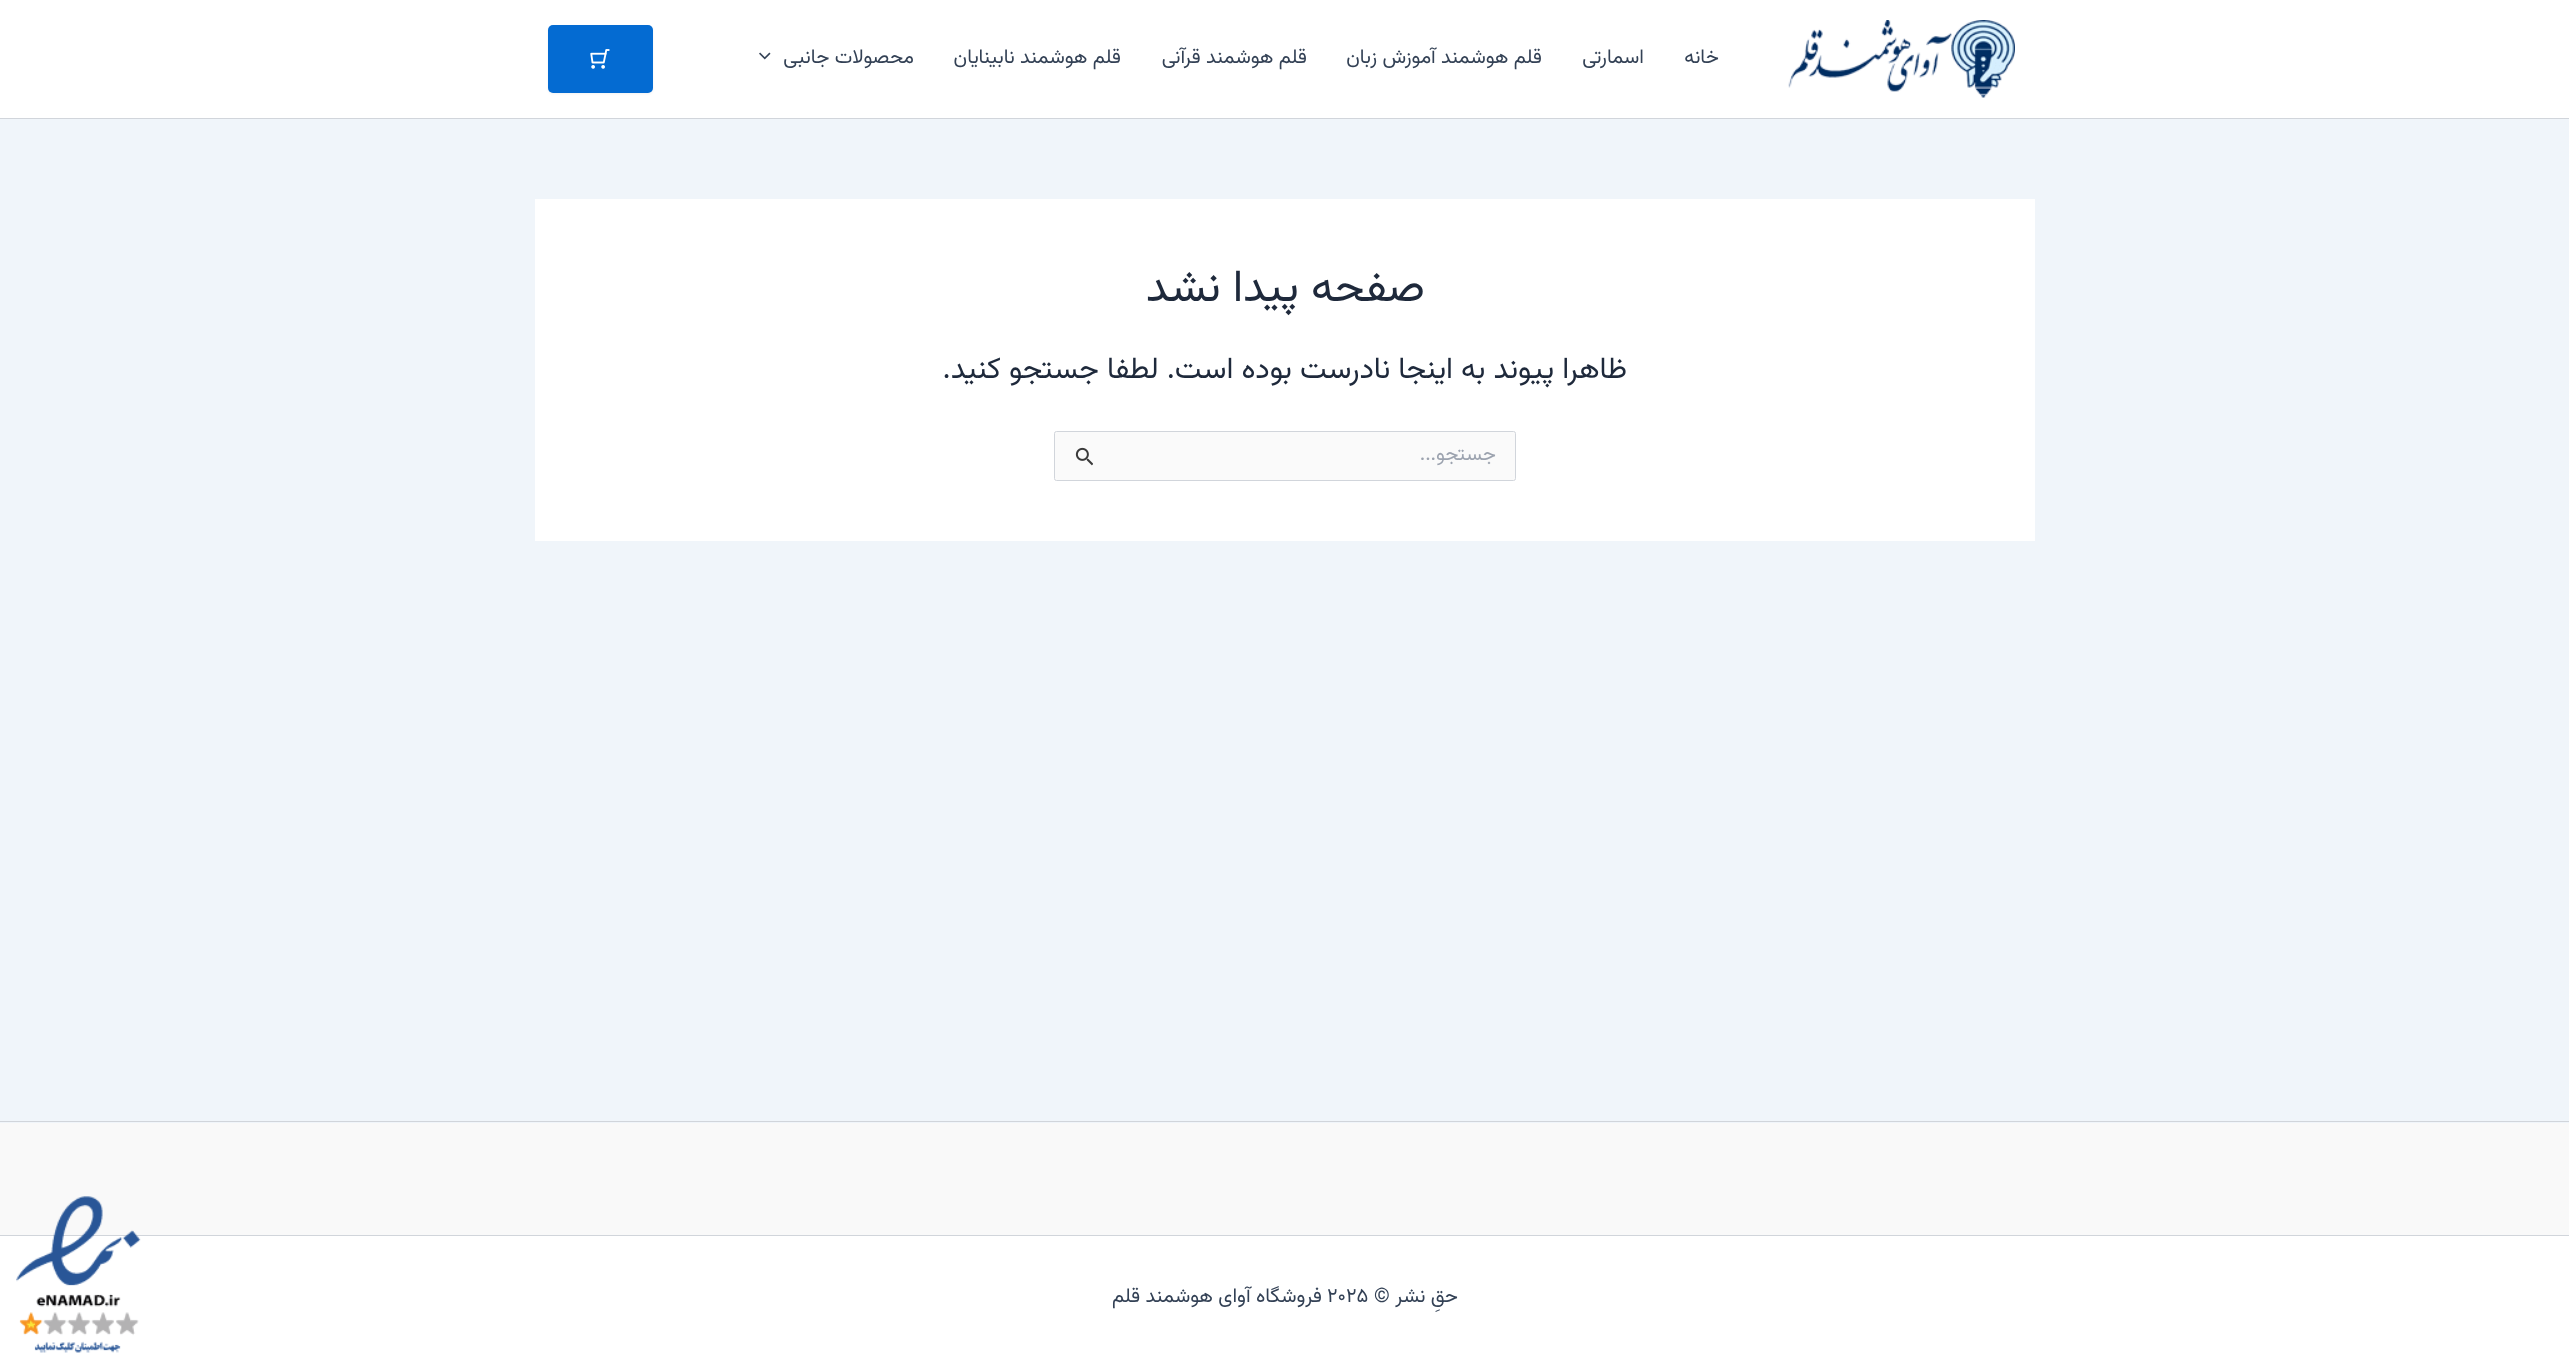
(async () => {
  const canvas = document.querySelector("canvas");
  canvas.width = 2569;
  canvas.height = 1361;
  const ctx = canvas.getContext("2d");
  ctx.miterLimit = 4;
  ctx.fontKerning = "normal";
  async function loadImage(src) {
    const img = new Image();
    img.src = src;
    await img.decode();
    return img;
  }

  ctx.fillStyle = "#f0f5fa";
  ctx.fillRect(0, 0, 2569, 1361);
  ctx.fillStyle = "#ffffff";
  ctx.fillRect(0, 0, 2569, 118);
  ctx.fillStyle = "#d1d5db";
  ctx.fillRect(0, 118, 2569, 1);
  ctx.drawImage(await loadImage("img/1.png"), 1788, 20, 227, 78);
  ctx.drawImage(await loadImage("img/2.png"), 759, 52, 12, 8);
  ctx.fillStyle = "rgba(0, 0, 0, 0.05)";
  ctx.filter = "blur(1px)";
  ctx.beginPath();
  ctx.roundRect(548, 26, 105, 68, 5);
  ctx.fill();
  ctx.filter = "none";
  ctx.fillStyle = "#046bd2";
  ctx.beginPath();
  ctx.roundRect(548, 25, 105, 68, 5);
  ctx.fill();
  ctx.drawImage(await loadImage("img/3.png"), 590, 49, 20, 20);
  ctx.fillStyle = "#ffffff";
  ctx.fillRect(535, 199, 1500, 342);
  ctx.fillStyle = "#fafafa";
  ctx.beginPath();
  ctx.roundRect(1054.5, 431.5, 461, 49, 2);
  ctx.fill();
  ctx.strokeStyle = "#d1d5db";
  ctx.stroke();
  ctx.drawImage(await loadImage("img/4.png"), 1075, 447, 18, 19);
  for (const [x, y, w, h, color] of [
    [0, 1123, 2569, 112, "#f9f9f9"],
    [0, 1121, 2569, 1, "#d1d5db"],
    [0, 1236, 2569, 125, "#ffffff"],
    [0, 1235, 2569, 1, "#d1d5db"],
  ]) {
    ctx.fillStyle = color;
    ctx.fillRect(x, y, w, h);
  }
  ctx.drawImage(await loadImage("img/5.png"), 16, 1196, 125, 157);
  ctx.direction = "rtl";
  ctx.font = "20px Vazirmatn";
  ctx.fillStyle = "#334155";
  for (const [text, x, y] of [
    ["خانه", 1719, 63],
    ["اسمارتی", 1644, 63],
    ["قلم هوشمند آموزش زبان", 1542, 63],
    ["قلم هوشمند قرآنی", 1307, 63],
    ["قلم هوشمند نابینایان", 1121, 63],
    ["محصولات جانبی", 914, 63],
  ]) {
    ctx.fillText(text, x, y);
  }
  ctx.font = "45px Vazirmatn";
  ctx.fillStyle = "#1e293b";
  ctx.fillText("صفحه پیدا نشد", 1425, 301);
  ctx.font = "30px Vazirmatn";
  ctx.fillText("ظاهرا پیوند به اینجا نادرست بوده است. لطفا جستجو کنید.", 1627, 378);
  ctx.font = "20px Vazirmatn";
  ctx.fillStyle = "#9ca3af";
  ctx.fillText("جستجو...", 1496, 460);
  ctx.fillStyle = "#334155";
  ctx.fillText("حقِ نشر ©", 1458, 1302);
  ctx.direction = "ltr";
  ctx.fillText("۲۰۲۵", 1327, 1302);
  ctx.direction = "rtl";
  ctx.fillText("فروشگاه آوای هوشمند قلم", 1322, 1302);
})();
